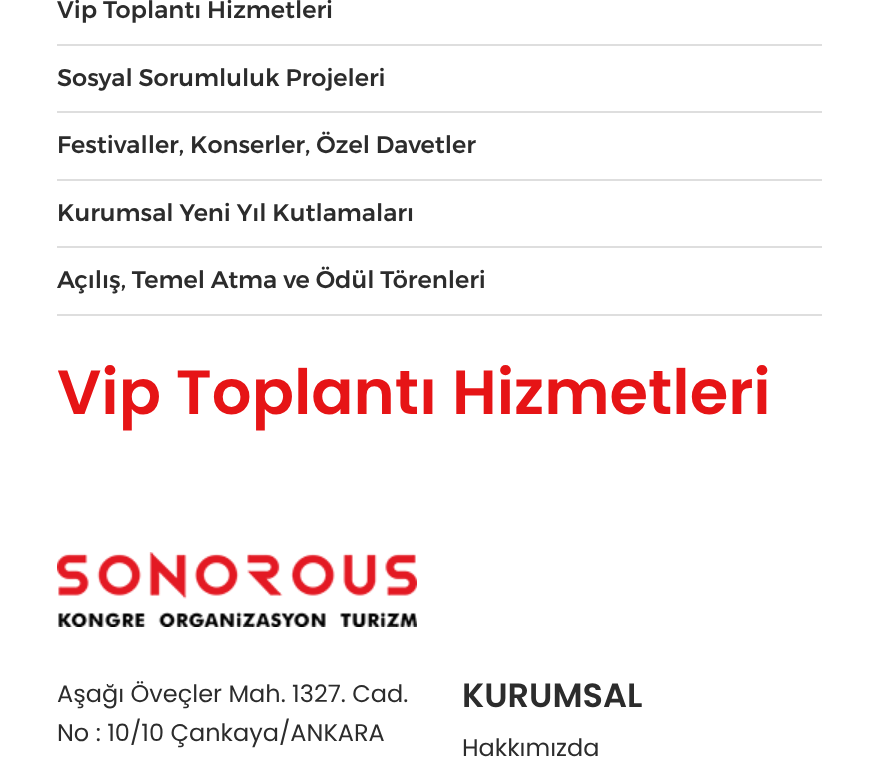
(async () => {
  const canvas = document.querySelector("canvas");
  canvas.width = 879;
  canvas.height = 776;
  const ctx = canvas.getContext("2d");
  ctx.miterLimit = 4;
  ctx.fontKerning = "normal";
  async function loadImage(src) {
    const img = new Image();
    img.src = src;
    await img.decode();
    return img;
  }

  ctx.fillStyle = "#ffffff";
  ctx.fillRect(0, 0, 879, 776);
  for (const [x, y, w, h, color] of [
    [57, 44, 765, 2, "#dedede"],
    [57, 111, 765, 2, "#dedede"],
    [57, 179, 765, 2, "#dedede"],
    [57, 246, 765, 2, "#dedede"],
    [57, 314, 765, 2, "#dedede"],
  ]) {
    ctx.fillStyle = color;
    ctx.fillRect(x, y, w, h);
  }
  ctx.drawImage(await loadImage("img/1.png"), 57, 552, 360, 75);
  ctx.font = "500 24px Montserrat";
  ctx.fillStyle = "#2c2c2c";
  for (const [text, x, y] of [
    ["Vip Toplantı Hizmetleri", 57, 18],
    ["Sosyal Sorumluluk Projeleri", 57, 86],
    ["Festivaller, Konserler, Özel Davetler", 57, 153],
    ["Kurumsal Yeni Yıl Kutlamaları", 57, 221],
    ["Açılış, Temel Atma ve Ödül Törenleri", 57, 288],
  ]) {
    ctx.fillText(text, x, y);
  }
  ctx.font = "600 62.4px Poppins";
  ctx.fillStyle = "#e61416";
  ctx.fillText("Vip Toplantı Hizmetleri", 57, 414);
  ctx.font = "24px Poppins";
  ctx.fillStyle = "#2c2c2c";
  ctx.fillText("Aşağı Öveçler Mah. 1327. Cad.", 57, 702);
  ctx.fillText("No : 10/10 Çankaya/ANKARA", 57, 741);
  ctx.font = "600 33.5px Poppins";
  ctx.fillText("KURUMSAL", 462, 707);
  ctx.font = "24px Poppins";
  ctx.fillText("Hakkımızda", 462, 756);
})();
